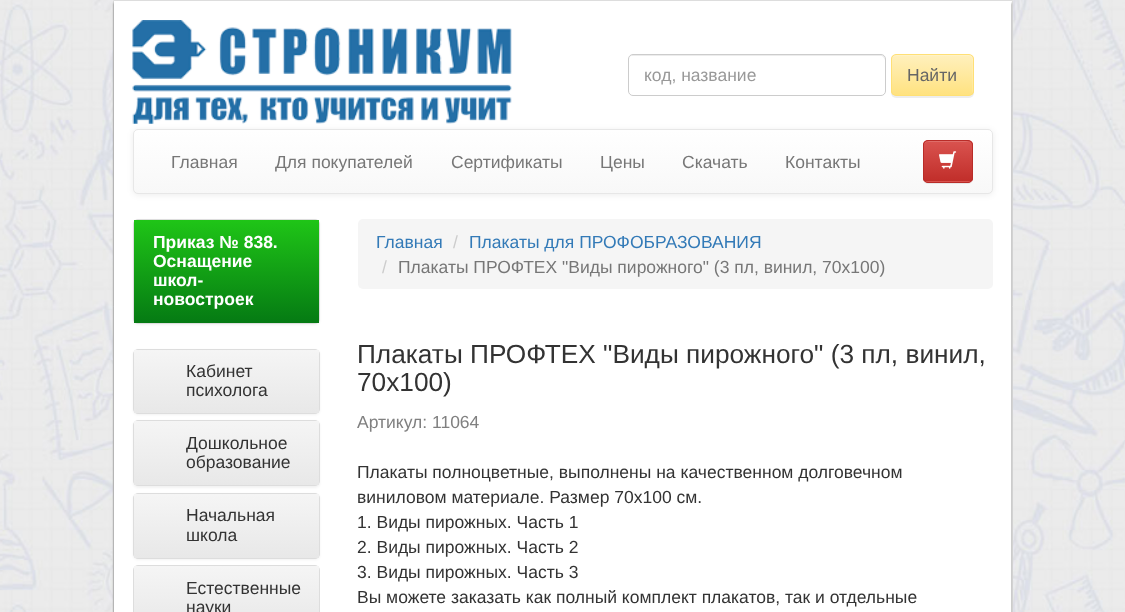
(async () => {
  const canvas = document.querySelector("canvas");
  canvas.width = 1125;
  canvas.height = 612;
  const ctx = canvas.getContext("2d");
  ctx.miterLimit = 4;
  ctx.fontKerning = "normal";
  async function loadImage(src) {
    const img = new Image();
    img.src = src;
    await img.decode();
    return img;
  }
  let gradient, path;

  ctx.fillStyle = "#ffffff";
  ctx.fillRect(0, 0, 1125, 612);
  ctx.drawImage(await loadImage("img/1.png"), 0, 0, 1125, 612);
  ctx.beginPath();
  ctx.rect(113.5, 0.5, 899, 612);
  ctx.fill();
  ctx.strokeStyle = "#dddddd";
  ctx.stroke();
  ctx.save();
  path = new Path2D("M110 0H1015V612H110ZM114 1H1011V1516H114Z");
  ctx.clip(path, "evenodd");
  ctx.fillStyle = "#666666";
  ctx.filter = "blur(1px)";
  ctx.beginPath();
  ctx.rect(114, 3, 897, 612);
  ctx.fill();
  ctx.filter = "none";
  ctx.restore();
  ctx.drawImage(await loadImage("img/2.png"), 132, 20, 380, 104);
  ctx.fillStyle = "#ececec";
  path = new Path2D("M632 56H882L884 58L885 60V59C885 57 883 55 881 55H633C631 55 629 57 629 59V60C629 58 630 56 632 56Z");
  ctx.fill(path);
  ctx.beginPath();
  ctx.roundRect(628.5, 54.5, 257, 41, 4.5);
  ctx.strokeStyle = "#cccccc";
  ctx.stroke();
  ctx.fillStyle = "rgba(0, 0, 0, 0.07)";
  ctx.filter = "blur(0.5px)";
  ctx.beginPath();
  ctx.roundRect(891, 55, 83, 43, 5);
  ctx.fill();
  ctx.filter = "none";
  ctx.save();
  ctx.beginPath();
  ctx.roundRect(891, 54, 83, 42, 5);
  ctx.clip();
  gradient = ctx.createLinearGradient(933, 55, 933, 95);
  gradient.addColorStop(0, "#fff0bd");
  gradient.addColorStop(1, "#ffe280");
  ctx.fillStyle = gradient;
  ctx.fillRect(891, 55, 83, 40);
  ctx.restore();
  ctx.fillStyle = "rgba(255, 255, 255, 0.15)";
  path = new Path2D("M896 56H969C974 56 972 69 972 71V94C973 93 973 92 973 91V59C973 57 971 55 969 55H897C896 55 894 56 894 57Z");
  ctx.fill(path);
  ctx.beginPath();
  ctx.roundRect(891.5, 54.5, 82, 41, 4.5);
  ctx.strokeStyle = "#ffe076";
  ctx.stroke();
  ctx.fillStyle = "rgba(0, 0, 0, 0.07)";
  ctx.filter = "blur(3px)";
  ctx.beginPath();
  ctx.roundRect(133, 130, 860, 65, 5);
  ctx.fill();
  ctx.filter = "none";
  ctx.save();
  ctx.beginPath();
  ctx.roundRect(133, 129, 860, 65, 5);
  ctx.clip();
  gradient = ctx.createLinearGradient(563, 130, 563, 193);
  gradient.addColorStop(0, "#ffffff");
  gradient.addColorStop(1, "#f8f8f8");
  ctx.fillStyle = gradient;
  ctx.fillRect(133, 130, 860, 63);
  ctx.restore();
  ctx.beginPath();
  ctx.roundRect(133.5, 129.5, 859, 64, 4.5);
  ctx.strokeStyle = "#e7e7e7";
  ctx.stroke();
  ctx.filter = "blur(0.5px)";
  ctx.beginPath();
  ctx.roundRect(923, 141, 50, 43, 5);
  ctx.fill();
  ctx.filter = "none";
  ctx.fillStyle = "#d9534f";
  ctx.beginPath();
  ctx.roundRect(923, 140, 50, 43, 5);
  ctx.fill();
  ctx.save();
  ctx.beginPath();
  ctx.roundRect(923, 140, 50, 43, 5);
  ctx.clip();
  gradient = ctx.createLinearGradient(948, 141, 948, 181);
  gradient.addColorStop(0, "#d9534f");
  gradient.addColorStop(1, "#c12e2a");
  ctx.fillStyle = gradient;
  ctx.fillRect(923, 141, 50, 40);
  ctx.restore();
  ctx.fillStyle = "#df6d69";
  path = new Path2D("M928 142H968C970 142 971 144 971 146C971 140 965 141 960 141H934C930 141 924 140 924 146C924 144 925 142 928 142Z");
  ctx.fill(path);
  ctx.beginPath();
  ctx.roundRect(923.5, 140.5, 49, 42, 4.5);
  ctx.strokeStyle = "#b92c28";
  ctx.stroke();
  ctx.drawImage(await loadImage("img/3.png"), 939, 151, 18, 18);
  ctx.fillStyle = "rgba(0, 0, 0, 0.05)";
  ctx.filter = "blur(1px)";
  ctx.beginPath();
  ctx.roundRect(133, 220, 187, 105, 5);
  ctx.fill();
  ctx.filter = "none";
  ctx.beginPath();
  ctx.roundRect(133.5, 219.5, 186, 104, 4.5);
  ctx.strokeStyle = "#dddddd";
  ctx.stroke();
  gradient = ctx.createLinearGradient(226, 220, 226, 323);
  gradient.addColorStop(0, "#1fc517");
  gradient.addColorStop(1, "#057a13");
  ctx.fillStyle = gradient;
  ctx.fillRect(134, 220, 185, 103);
  ctx.fillStyle = "rgba(0, 0, 0, 0.05)";
  ctx.filter = "blur(1px)";
  ctx.beginPath();
  ctx.roundRect(133, 350, 187, 65, 5);
  ctx.fill();
  ctx.filter = "none";
  ctx.beginPath();
  ctx.roundRect(133.5, 349.5, 186, 64, 4.5);
  ctx.stroke();
  gradient = ctx.createLinearGradient(226, 350, 226, 413);
  gradient.addColorStop(0, "#f5f5f5");
  gradient.addColorStop(1, "#e8e8e8");
  ctx.fillStyle = gradient;
  ctx.fillRect(134, 350, 185, 63);
  ctx.fillStyle = "rgba(0, 0, 0, 0.05)";
  ctx.filter = "blur(1px)";
  ctx.beginPath();
  ctx.roundRect(133, 421, 187, 67, 5);
  ctx.fill();
  ctx.filter = "none";
  ctx.beginPath();
  ctx.roundRect(133.5, 420.5, 186, 65, 4.5);
  ctx.stroke();
  gradient = ctx.createLinearGradient(226, 421, 226, 485);
  gradient.addColorStop(0, "#f5f5f5");
  gradient.addColorStop(1, "#e8e8e8");
  ctx.fillStyle = gradient;
  ctx.fillRect(134, 421, 185, 64);
  ctx.fillStyle = "rgba(0, 0, 0, 0.05)";
  ctx.filter = "blur(1px)";
  ctx.beginPath();
  ctx.roundRect(133, 494, 187, 66, 5);
  ctx.fill();
  ctx.filter = "none";
  ctx.beginPath();
  ctx.roundRect(133.5, 493.5, 186, 65, 4.5);
  ctx.stroke();
  gradient = ctx.createLinearGradient(226, 494, 226, 558);
  gradient.addColorStop(0, "#f5f5f5");
  gradient.addColorStop(1, "#e8e8e8");
  ctx.fillStyle = gradient;
  ctx.fillRect(134, 494, 185, 64);
  ctx.beginPath();
  ctx.roundRect(133.5, 565.5, 186, 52, 4.5);
  ctx.stroke();
  gradient = ctx.createLinearGradient(226, 566, 226, 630);
  gradient.addColorStop(0, "#f5f5f5");
  gradient.addColorStop(1, "#e8e8e8");
  ctx.fillStyle = gradient;
  ctx.fillRect(134, 566, 185, 46);
  ctx.fillStyle = "#f5f5f5";
  ctx.beginPath();
  ctx.roundRect(358, 219, 635, 70, 5);
  ctx.fill();
  ctx.font = "17.5px Liberation Sans";
  ctx.fillStyle = "#999999";
  ctx.fillText("код, название", 644, 81);
  ctx.fillStyle = "#666666";
  ctx.fillText("Найти", 907, 81);
  ctx.fillStyle = "#777777";
  for (const [text, x, y] of [
    ["Главная", 171, 168],
    ["Для покупателей", 275, 168],
    ["Сертификаты", 451, 168],
    ["Цены", 600, 168],
    ["Скачать", 682, 168],
    ["Контакты", 785, 168],
  ]) {
    ctx.fillText(text, x, y);
  }
  ctx.font = "bold 17.5px Liberation Sans";
  ctx.fillStyle = "#ffffff";
  for (const [text, x, y] of [
    ["Приказ № 838.", 153, 248],
    ["Оснащение", 153, 267],
    ["школ-", 153, 286],
    ["новостроек", 153, 305],
  ]) {
    ctx.fillText(text, x, y);
  }
  ctx.font = "17.5px Liberation Sans";
  ctx.fillStyle = "#333333";
  for (const [text, x, y] of [
    ["Кабинет", 186, 377],
    ["психолога", 186, 396],
    ["Дошкольное", 186, 449],
    ["образование", 186, 468],
    ["Начальная", 186, 521],
    ["школа", 186, 541],
    ["Естественные", 186, 594],
    ["науки", 186, 613],
  ]) {
    ctx.fillText(text, x, y);
  }
  ctx.fillStyle = "#337ab7";
  ctx.fillText("Главная", 376, 248);
  ctx.fillStyle = "#cccccc";
  ctx.fillText("/", 453, 248);
  ctx.fillStyle = "#337ab7";
  ctx.fillText("Плакаты для ПРОФОБРАЗОВАНИЯ", 469, 248);
  ctx.fillStyle = "#cccccc";
  ctx.fillText("/", 382, 273);
  ctx.fillStyle = "#777777";
  ctx.fillText("Плакаты ПРОФТЕХ \"Виды пирожного\" (3 пл, винил, 70х100)", 398, 273);
  ctx.font = "26.25px Liberation Sans";
  ctx.fillStyle = "#333333";
  ctx.fillText("Плакаты ПРОФТЕХ \"Виды пирожного\" (3 пл, винил,", 357, 363);
  ctx.fillText("70х100)", 357, 391);
  ctx.font = "17.5px Liberation Sans";
  ctx.fillStyle = "#808080";
  ctx.fillText("Артикул: 11064", 357, 428);
  ctx.fillStyle = "#333333";
  for (const [text, x, y] of [
    ["Плакаты полноцветные, выполнены на качественном долговечном", 357, 478],
    ["виниловом материале. Размер 70х100 см.", 357, 503],
    ["1. Виды пирожных. Часть 1", 357, 528],
    ["2. Виды пирожных. Часть 2", 357, 553],
    ["3. Виды пирожных. Часть 3", 357, 578],
    ["Вы можете заказать как полный комплект плакатов, так и отдельные", 357, 603],
  ]) {
    ctx.fillText(text, x, y);
  }
})();
